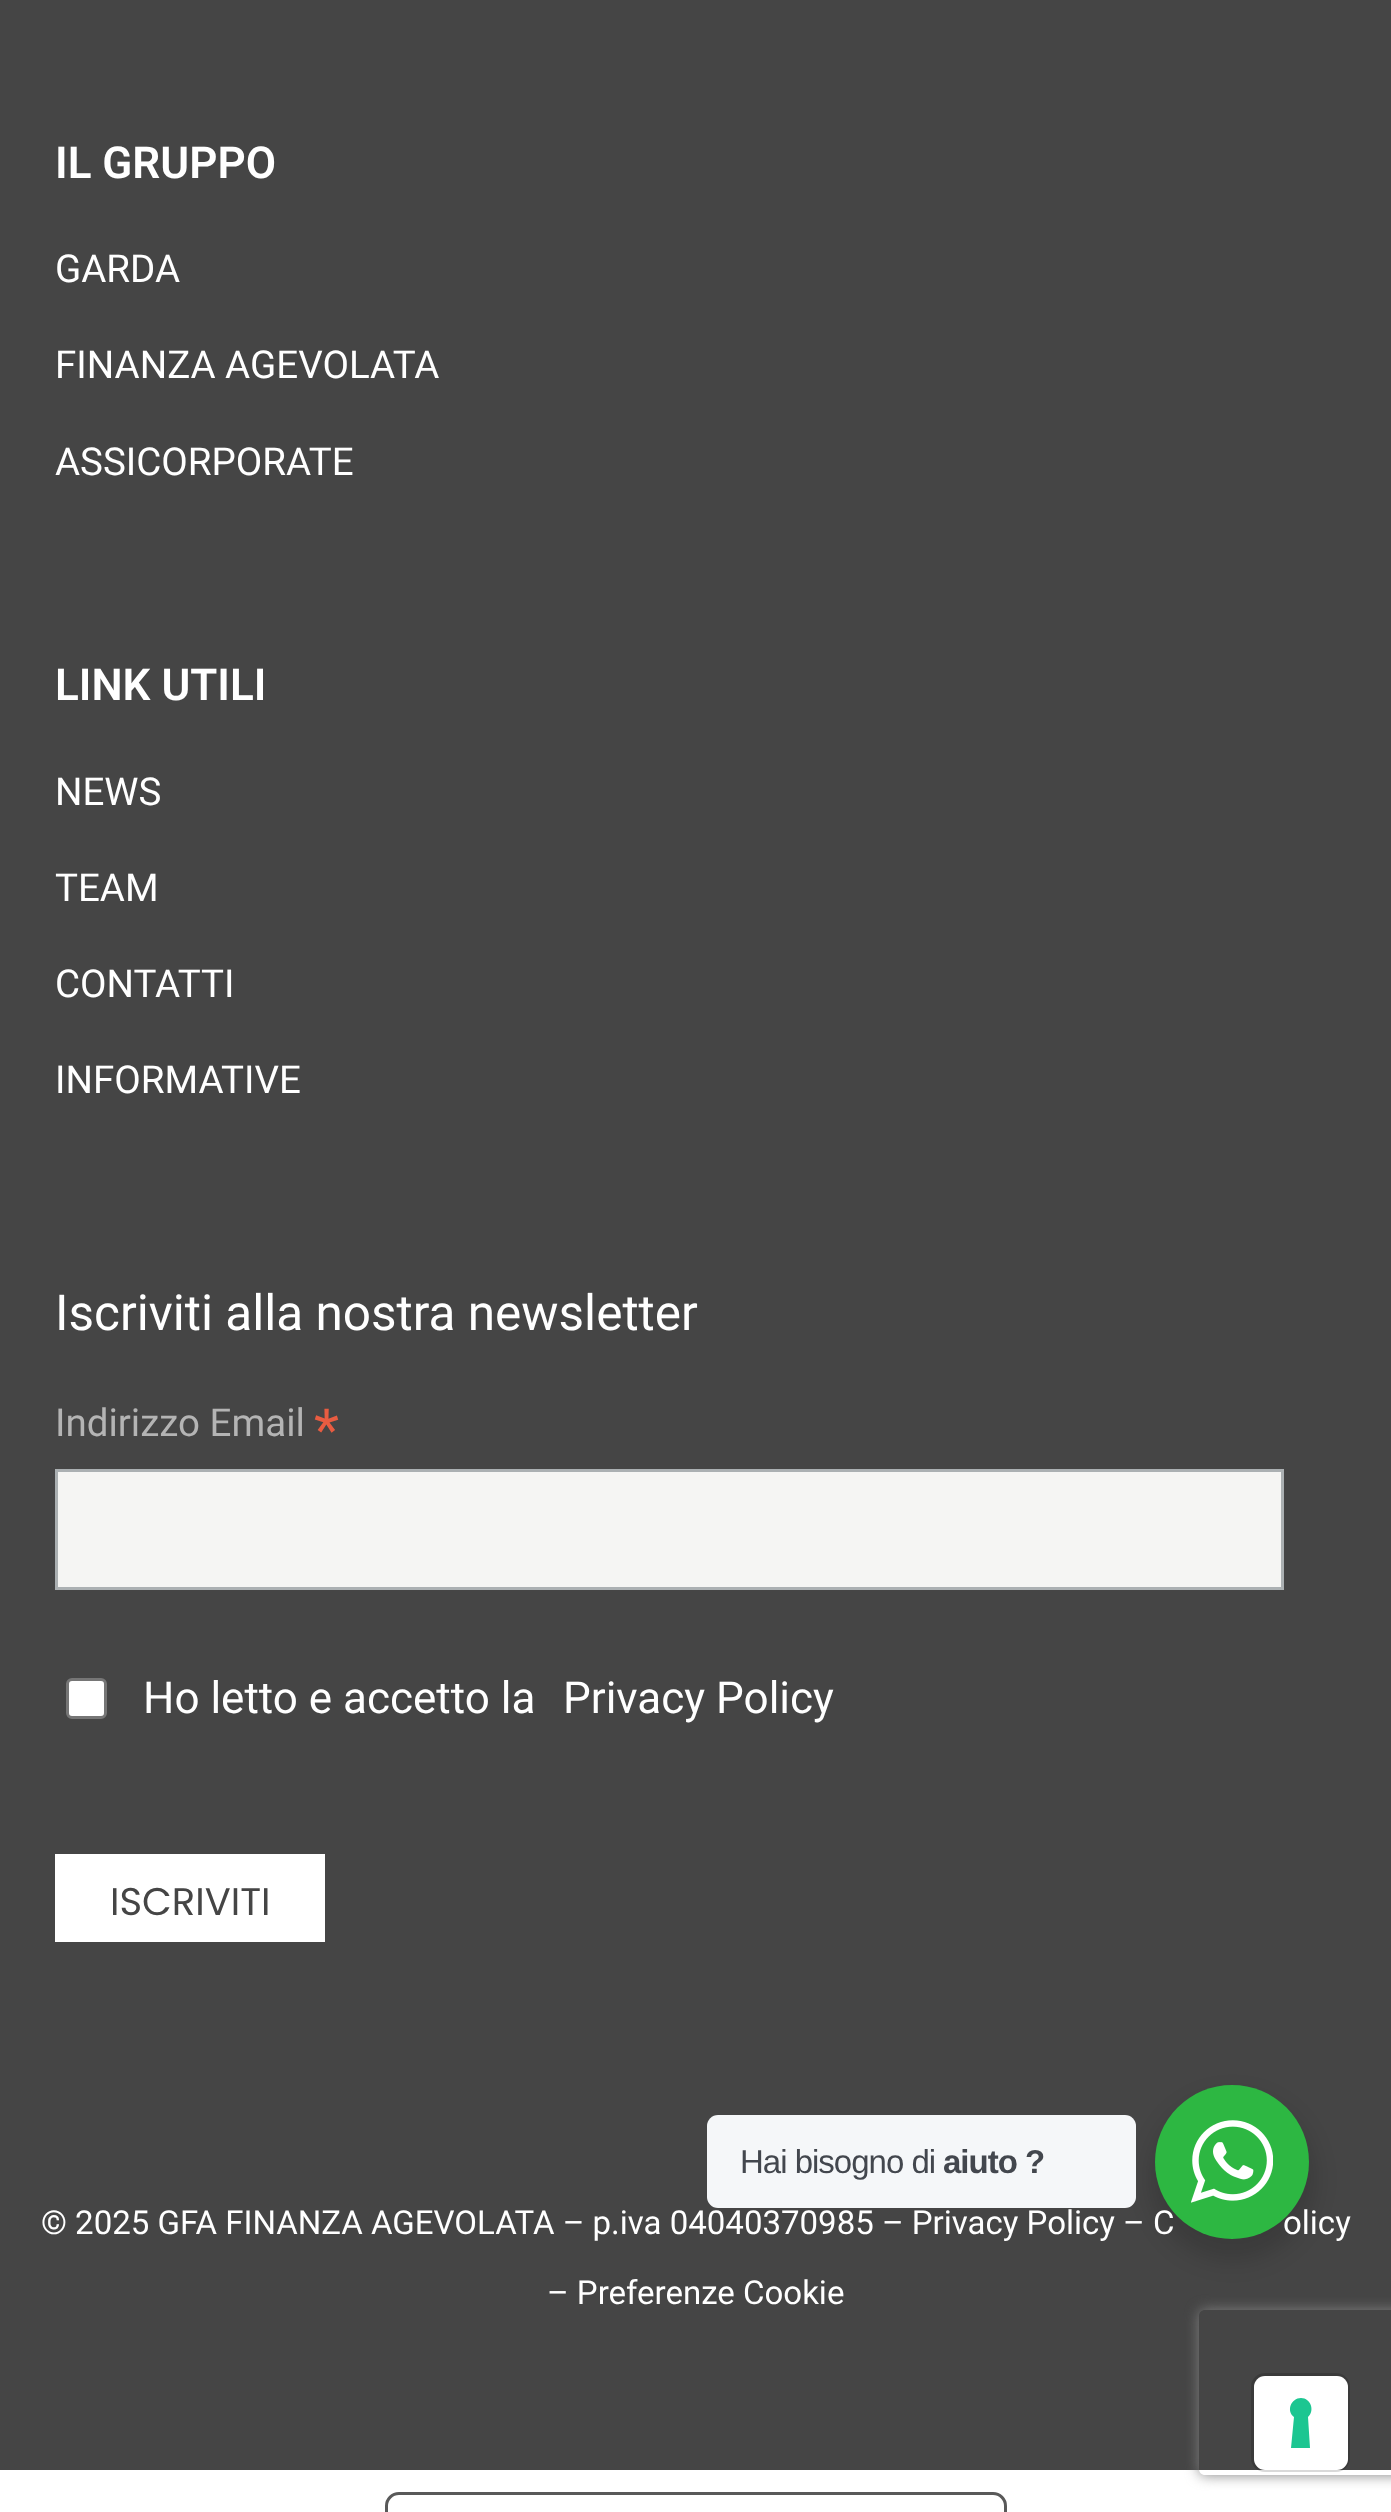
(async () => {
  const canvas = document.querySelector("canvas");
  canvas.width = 1391;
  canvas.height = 2512;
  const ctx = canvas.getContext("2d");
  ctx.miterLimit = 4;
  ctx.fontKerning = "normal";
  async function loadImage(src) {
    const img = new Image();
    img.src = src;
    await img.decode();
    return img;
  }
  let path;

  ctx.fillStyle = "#ffffff";
  ctx.fillRect(0, 0, 1391, 2512);
  ctx.fillStyle = "#454545";
  ctx.fillRect(0, 0, 1391, 2470);
  ctx.fillStyle = "#f5f5f3";
  ctx.beginPath();
  ctx.rect(56.5, 1470.5, 1226, 118);
  ctx.fill();
  ctx.strokeStyle = "#abb0b2";
  ctx.lineWidth = 3;
  ctx.stroke();
  ctx.fillStyle = "#ffffff";
  ctx.beginPath();
  ctx.roundRect(67.5, 1679.5, 38, 38, 4.5);
  ctx.fill();
  ctx.strokeStyle = "#767676";
  ctx.stroke();
  ctx.fillRect(55, 1854, 270, 88);
  ctx.fillStyle = "rgba(0, 0, 0, 0.14)";
  ctx.filter = "blur(11px)";
  ctx.beginPath();
  ctx.roundRect(1150, 2096, 165, 165, 82.5);
  ctx.fill();
  ctx.filter = "none";
  ctx.fillStyle = "#f5f7f9";
  ctx.beginPath();
  ctx.roundRect(707, 2115, 429, 93, 11);
  ctx.fill();
  ctx.save();
  path = new Path2D("M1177 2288H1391V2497H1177ZM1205 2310H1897C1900.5 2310 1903 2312.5 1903 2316V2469C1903 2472.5 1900.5 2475 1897 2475H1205C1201.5 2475 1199 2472.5 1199 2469V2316C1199 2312.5 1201.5 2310 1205 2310Z");
  ctx.clip(path, "evenodd");
  ctx.fillStyle = "#808080";
  ctx.filter = "blur(7px)";
  ctx.beginPath();
  ctx.roundRect(1199, 2310, 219, 165, 6);
  ctx.fill();
  ctx.filter = "none";
  ctx.restore();
  ctx.beginPath();
  ctx.roundRect(1252.5, 2374.5, 96, 96, 12.5);
  ctx.strokeStyle = "rgba(0, 0, 0, 0.15)";
  ctx.stroke();
  ctx.fillStyle = "#ffffff";
  ctx.beginPath();
  ctx.roundRect(1254, 2376, 94, 94, 11);
  ctx.fill();
  ctx.fillStyle = "#1cc691";
  path = new Path2D("M1301 2398C1311 2398 1315 2411 1308 2417L1310 2448H1291L1294 2417C1286 2411 1291 2398 1301 2398Z");
  ctx.fill(path, "evenodd");
  ctx.beginPath();
  ctx.roundRect(386.5, 2493.5, 619, 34, 12.5);
  ctx.strokeStyle = "#595959";
  ctx.stroke();
  ctx.font = "600 44px Roboto";
  ctx.fillStyle = "#ffffff";
  ctx.fillText("IL GRUPPO", 55, 178);
  ctx.font = "38.5px Roboto";
  for (const [text, x, y] of [
    ["GARDA", 55, 282],
    ["FINANZA AGEVOLATA", 55, 378],
    ["ASSICORPORATE", 55, 475],
  ]) {
    ctx.fillText(text, x, y);
  }
  ctx.font = "600 44px Roboto";
  ctx.fillText("LINK UTILI", 55, 700);
  ctx.font = "38.5px Roboto";
  for (const [text, x, y] of [
    ["NEWS", 55, 805],
    ["TEAM", 55, 901],
    ["CONTATTI", 55, 997],
    ["INFORMATIVE", 55, 1093],
  ]) {
    ctx.fillText(text, x, y);
  }
  ctx.font = "49.5px Roboto";
  ctx.fillText("Iscriviti alla nostra newsletter", 55, 1330);
  ctx.font = "38.5px Roboto";
  ctx.fillStyle = "#b4b4b4";
  ctx.fillText("Indirizzo Email", 55, 1436);
  ctx.font = "58px Roboto";
  ctx.fillStyle = "#e85c41";
  ctx.fillText("*", 314, 1450);
  ctx.font = "44px Roboto";
  ctx.fillStyle = "#ffffff";
  ctx.fillText("Ho letto e accetto la", 143, 1713);
  ctx.fillText("Privacy Policy", 563, 1713);
  ctx.font = "38.5px Poppins";
  ctx.fillStyle = "#454545";
  ctx.fillText("ISCRIVITI", 110, 1915);
  ctx.font = "33px Roboto";
  ctx.fillStyle = "#ffffff";
  for (const [text, x, y] of [
    ["© 2025 GFA FINANZA AGEVOLATA – p.iva 04040370985 – Privacy Policy – C", 41, 2234],
    ["olicy", 1283, 2234],
    ["– Preferenze Cookie", 547, 2304],
  ]) {
    ctx.fillText(text, x, y);
  }
  ctx.letterSpacing = "-1px";
  ctx.font = "33px Liberation Sans";
  ctx.fillStyle = "#43474e";
  ctx.fillText("Hai bisogno di", 740, 2173);
  ctx.font = "bold 33px Liberation Sans";
  ctx.fillText("aiuto ?", 943, 2173);
  ctx.fillStyle = "#2db742";
  ctx.beginPath();
  ctx.arc(1232, 2162, 77, 0, Math.PI * 2);
  ctx.fill();
  ctx.drawImage(await loadImage("img/1.png"), 1191, 2120, 82, 83);
})();
